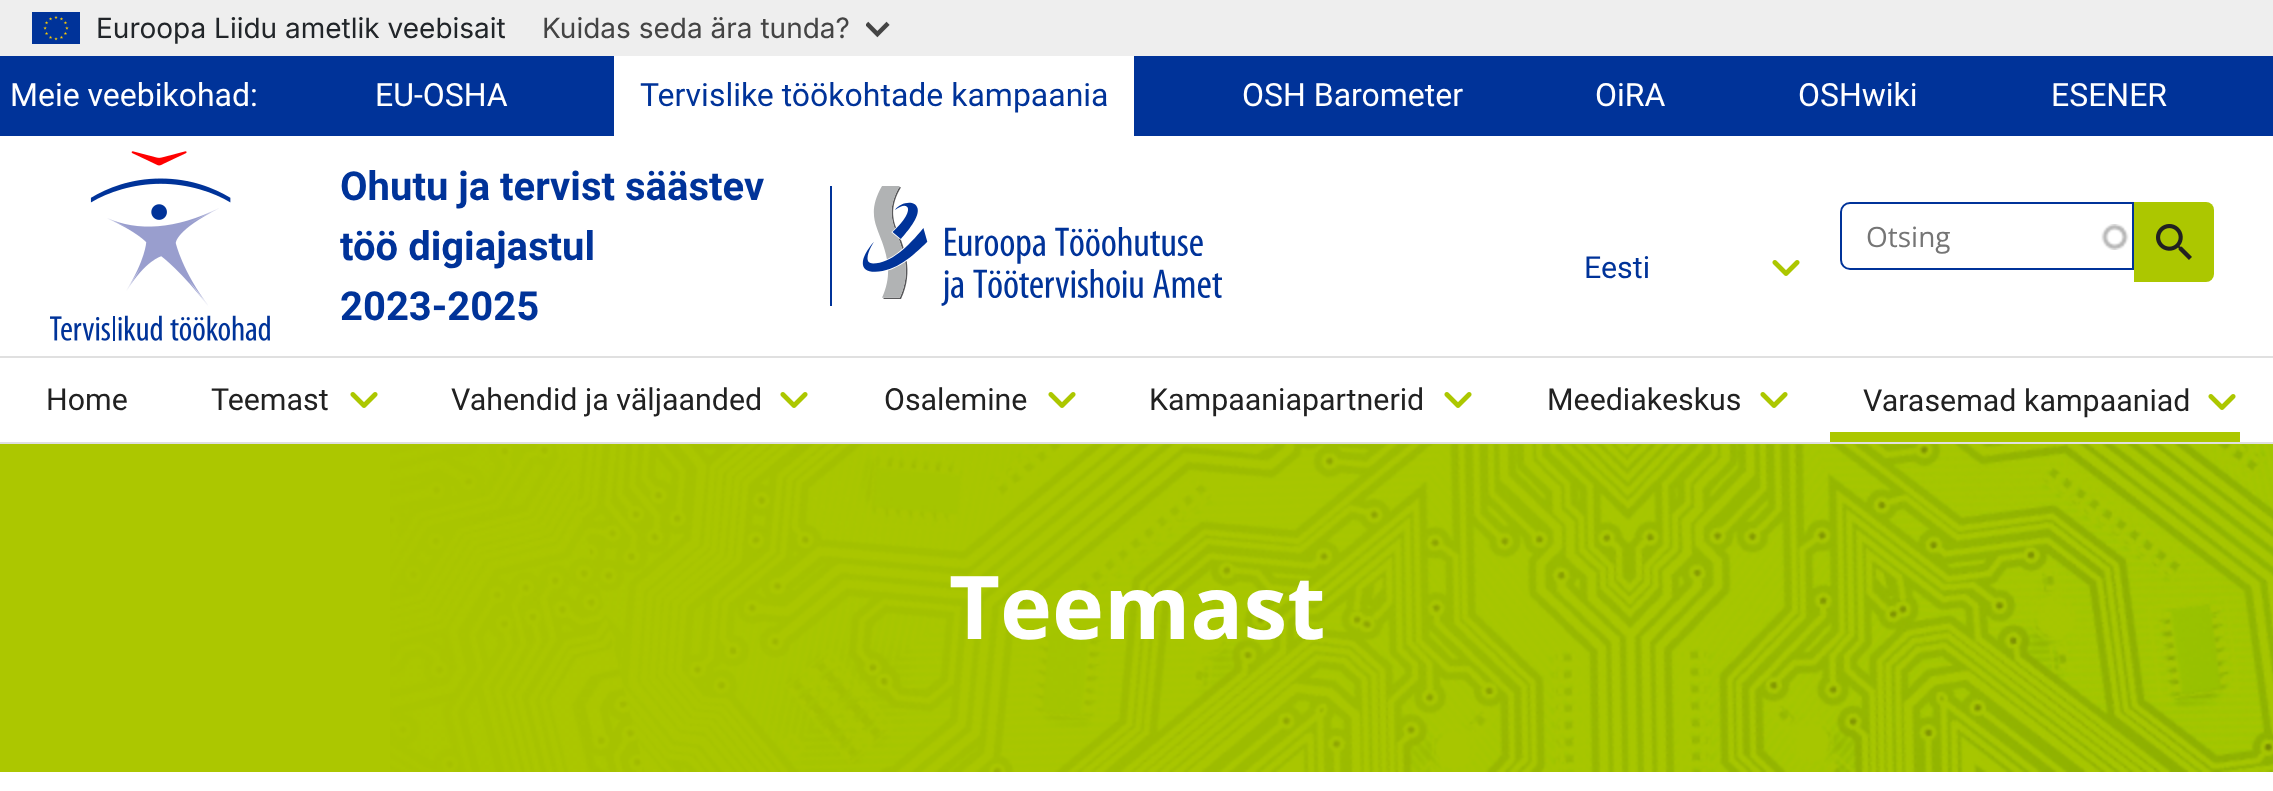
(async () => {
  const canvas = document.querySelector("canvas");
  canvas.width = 2273;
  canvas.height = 791;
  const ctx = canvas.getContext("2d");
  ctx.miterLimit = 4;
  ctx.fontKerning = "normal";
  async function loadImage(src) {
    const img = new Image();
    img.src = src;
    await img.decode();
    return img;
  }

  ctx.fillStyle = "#ffffff";
  ctx.fillRect(0, 0, 2273, 791);
  ctx.fillStyle = "#eeeeee";
  ctx.fillRect(0, 0, 2273, 56);
  ctx.drawImage(await loadImage("img/1.png"), 32, 12, 48, 32);
  ctx.drawImage(await loadImage("img/2.png"), 866, 21, 24, 17);
  ctx.fillStyle = "#003399";
  ctx.fillRect(0, 56, 2273, 80);
  ctx.fillStyle = "#ffffff";
  ctx.fillRect(614, 56, 520, 80);
  ctx.drawImage(await loadImage("img/3.png"), 50, 151, 220, 190);
  ctx.fillStyle = "#003399";
  ctx.fillRect(830, 186, 2, 120);
  ctx.drawImage(await loadImage("img/4.png"), 862, 186, 360, 120);
  ctx.drawImage(await loadImage("img/5.png"), 2101, 224, 28, 26);
  ctx.beginPath();
  ctx.roundRect(1841, 203, 292, 66, [9, 0, 0, 9]);
  ctx.strokeStyle = "#003399";
  ctx.lineWidth = 2;
  ctx.stroke();
  ctx.fillStyle = "#acc700";
  ctx.beginPath();
  ctx.roundRect(2134, 202, 80, 80, [0, 8, 8, 0]);
  ctx.fill();
  ctx.drawImage(await loadImage("img/6.png"), 2156, 224, 36, 36);
  ctx.drawImage(await loadImage("img/7.png"), 1772, 260, 28, 16);
  ctx.fillStyle = "#e0e0e0";
  ctx.fillRect(0, 356, 2273, 2);
  ctx.fillRect(0, 442, 2273, 2);
  ctx.drawImage(await loadImage("img/7.png"), 350, 392, 28, 16);
  ctx.drawImage(await loadImage("img/7.png"), 780, 392, 28, 16);
  ctx.drawImage(await loadImage("img/7.png"), 1048, 392, 28, 16);
  ctx.drawImage(await loadImage("img/7.png"), 1444, 392, 28, 16);
  ctx.drawImage(await loadImage("img/7.png"), 1760, 392, 28, 16);
  ctx.drawImage(await loadImage("img/7.png"), 2208, 394, 28, 16);
  ctx.fillStyle = "#acc700";
  ctx.fillRect(1830, 432, 410, 10);
  ctx.fillRect(0, 444, 2273, 328);
  ctx.drawImage(await loadImage("img/8.png"), 390, 444, 1883, 328);
  ctx.font = "28px Inter";
  ctx.fillStyle = "#212529";
  ctx.fillText("Euroopa Liidu ametlik veebisait", 96, 38);
  ctx.fillStyle = "#444444";
  ctx.fillText("Kuidas seda ära tunda?", 542, 38);
  ctx.font = "32px Roboto";
  ctx.fillStyle = "#ffffff";
  ctx.fillText("Meie veebikohad:", 10, 106);
  ctx.fillText("EU-OSHA", 375, 106);
  ctx.fillStyle = "#003399";
  ctx.fillText("Tervislike töökohtade kampaania", 640, 106);
  ctx.fillStyle = "#ffffff";
  for (const [text, x, y] of [
    ["OSH Barometer", 1242, 106],
    ["OiRA", 1595, 106],
    ["OSHwiki", 1798, 106],
    ["ESENER", 2051, 106],
  ]) {
    ctx.fillText(text, x, y);
  }
  ctx.font = "bold 40px Roboto";
  ctx.fillStyle = "#003399";
  for (const [text, x, y] of [
    ["Ohutu ja tervist säästev", 340, 200],
    ["töö digiajastul", 340, 260],
    ["2023-2025", 340, 320],
  ]) {
    ctx.fillText(text, x, y);
  }
  ctx.font = "28px Open Sans";
  ctx.fillStyle = "#757575";
  ctx.fillText("Otsing", 1866, 247);
  ctx.font = "30.4px Roboto";
  ctx.fillStyle = "#003399";
  ctx.fillText("Eesti", 1584, 278);
  ctx.fillStyle = "#212121";
  for (const [text, x, y] of [
    ["Home", 46, 410],
    ["Teemast", 211, 410],
    ["Vahendid ja väljaanded", 451, 410],
    ["Osalemine", 884, 410],
    ["Kampaaniapartnerid", 1149, 410],
    ["Meediakeskus", 1547, 410],
    ["Varasemad kampaaniad", 1863, 411],
  ]) {
    ctx.fillText(text, x, y);
  }
  ctx.font = "bold 88px Open Sans";
  ctx.fillStyle = "#ffffff";
  ctx.fillText("Teemast", 949, 639);
})();
